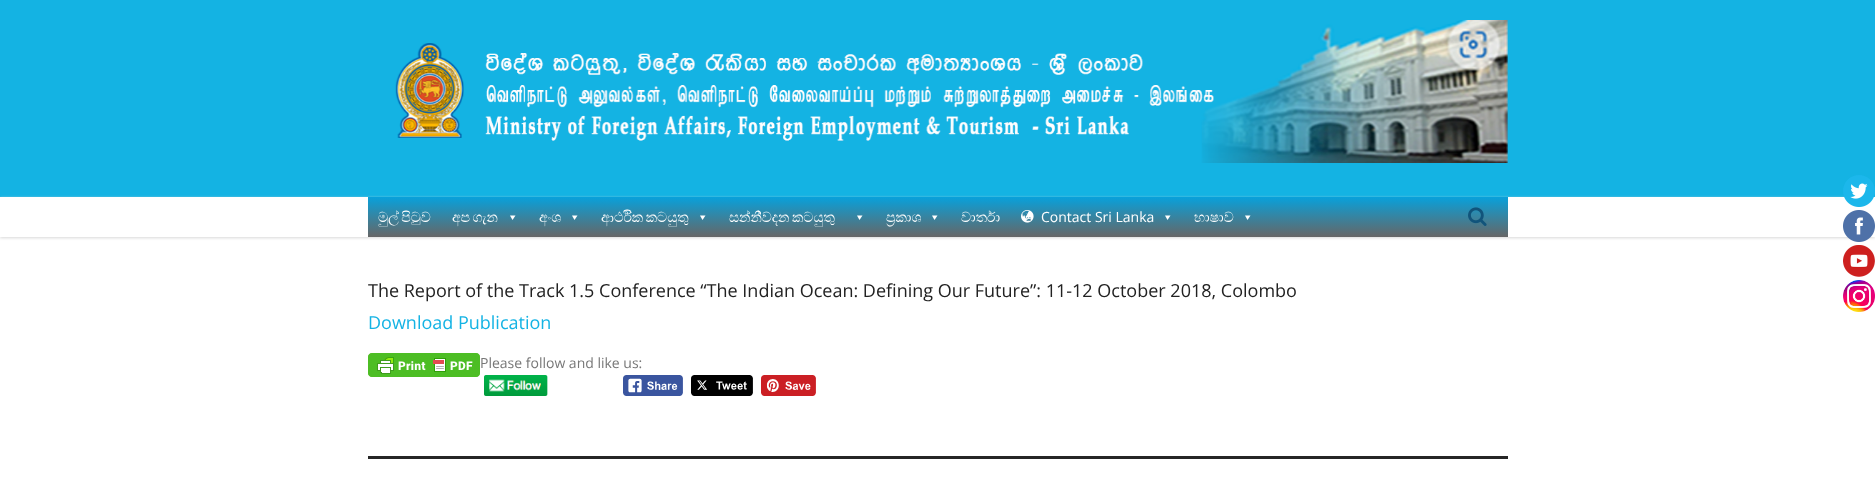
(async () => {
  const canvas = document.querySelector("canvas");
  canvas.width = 1875;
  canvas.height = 487;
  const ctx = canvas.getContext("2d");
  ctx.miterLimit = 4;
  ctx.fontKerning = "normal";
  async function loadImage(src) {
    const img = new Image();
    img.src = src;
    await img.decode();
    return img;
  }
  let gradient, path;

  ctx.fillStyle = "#ffffff";
  ctx.fillRect(0, 0, 1875, 487);
  ctx.fillStyle = "#14b3e3";
  ctx.fillRect(0, 0, 1875, 197);
  ctx.drawImage(await loadImage("img/1.png"), 395, 20, 1113, 143);
  ctx.fillStyle = "#d8d8d8";
  ctx.filter = "blur(1.5px)";
  ctx.beginPath();
  ctx.rect(0, 198, 1875, 40);
  ctx.fill();
  ctx.filter = "none";
  ctx.fillStyle = "#ffffff";
  ctx.fillRect(0, 197, 1875, 40);
  gradient = ctx.createLinearGradient(938, 197, 938, 237);
  gradient.addColorStop(0, "#08a1db");
  gradient.addColorStop(1, "#666666");
  ctx.fillStyle = gradient;
  ctx.fillRect(368, 197, 1140, 40);
  ctx.fillStyle = "#ffffff";
  path = new Path2D("M515.5 215.5L512.5 220L510 215.5Z");
  ctx.fill(path);
  path = new Path2D("M577.5 215.5L574.5 220L572 215.5Z");
  ctx.fill(path);
  path = new Path2D("M705.5 215.5L702.5 220L700 215.5Z");
  ctx.fill(path);
  path = new Path2D("M862.5 215.5L859.5 220L857 215.5Z");
  ctx.fill(path);
  path = new Path2D("M937.5 215.5L934.5 220L932 215.5Z");
  ctx.fill(path);
  ctx.drawImage(await loadImage("img/2.png"), 1021, 210, 13, 13);
  path = new Path2D("M1170.5 215.5L1167.5 220L1165 215.5Z");
  ctx.fill(path);
  path = new Path2D("M1250.5 215.5L1247.5 220L1245 215.5Z");
  ctx.fill(path);
  ctx.drawImage(await loadImage("img/3.png"), 1468, 207, 19, 19);
  ctx.fillStyle = "#262626";
  ctx.fillRect(368, 456, 1140, 3);
  ctx.drawImage(await loadImage("img/4.png"), 368, 353, 112, 24);
  ctx.drawImage(await loadImage("img/5.png"), 484, 375, 64, 21);
  ctx.drawImage(await loadImage("img/6.png"), 623, 375, 60, 21);
  ctx.drawImage(await loadImage("img/7.png"), 691, 375, 62, 21);
  ctx.drawImage(await loadImage("img/8.png"), 761, 375, 55, 21);
  ctx.drawImage(await loadImage("img/9.png"), 1843, 175, 32, 32);
  ctx.drawImage(await loadImage("img/10.png"), 1843, 210, 32, 32);
  ctx.drawImage(await loadImage("img/11.png"), 1843, 245, 32, 32);
  ctx.drawImage(await loadImage("img/12.png"), 1843, 280, 32, 32);
  ctx.wordSpacing = "-1px";
  ctx.font = "14px FreeSerif";
  ctx.fillStyle = "#ffffff";
  ctx.fillText("මුල් පිටුව", 378, 222);
  ctx.fillText("අප ගැන", 452, 222);
  ctx.wordSpacing = "0px";
  ctx.fillText("අංශ", 539, 222);
  ctx.wordSpacing = "-1px";
  ctx.fillText("ආර්ථික කටයුතු", 601, 222);
  ctx.fillText("සන්නිවේදන කටයුතු", 729, 222);
  ctx.wordSpacing = "0px";
  ctx.fillText("ප්‍රකාශ", 886, 222);
  ctx.fillText("වාර්තා", 961, 222);
  ctx.font = "14px Open Sans";
  ctx.fillText("Contact Sri Lanka", 1041, 222);
  ctx.font = "14px FreeSerif";
  ctx.fillText("භාෂාව", 1194, 222);
  ctx.font = "18px Open Sans";
  ctx.fillStyle = "#222222";
  ctx.fillText("The Report of the Track 1.5 Conference “The Indian Ocean: Defining Our Future”: 11-12 October 2018, Colombo", 368, 297);
  ctx.fillStyle = "#14b3e4";
  ctx.fillText("Download Publication", 368, 329);
  ctx.font = "14px Open Sans";
  ctx.fillStyle = "#777777";
  ctx.fillText("Please follow and like us:", 480, 368);
})();
